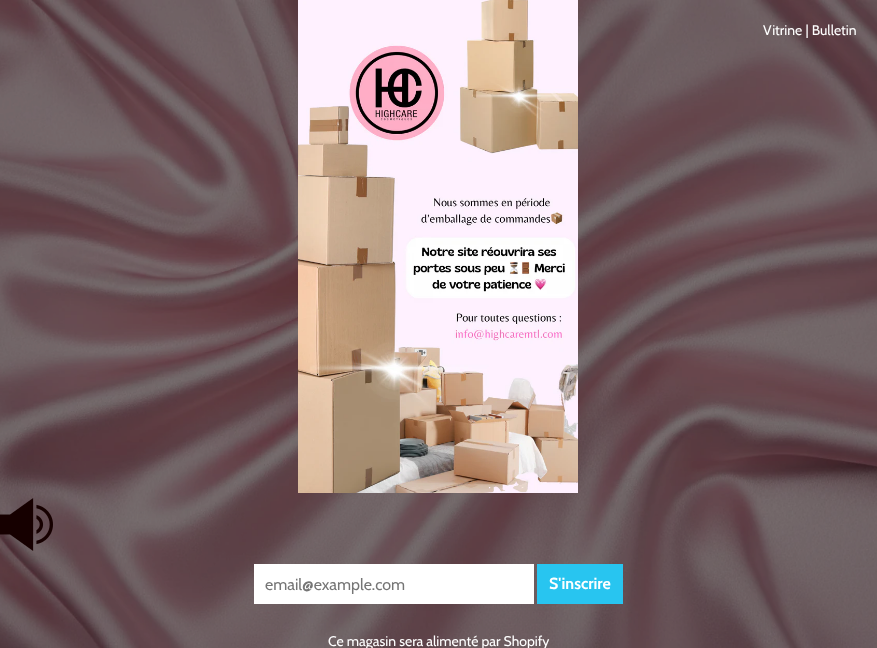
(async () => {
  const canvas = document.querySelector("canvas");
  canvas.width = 877;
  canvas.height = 648;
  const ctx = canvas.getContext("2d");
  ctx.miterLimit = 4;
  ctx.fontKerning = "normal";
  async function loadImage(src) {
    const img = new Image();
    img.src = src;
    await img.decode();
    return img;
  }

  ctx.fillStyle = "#ffffff";
  ctx.fillRect(0, 0, 877, 648);
  ctx.drawImage(await loadImage("img/2.png"), 0, 0, 877, 648);
  ctx.drawImage(await loadImage("img/1.png"), 0, 498, 53, 53);
  ctx.drawImage(await loadImage("img/3.png"), 298, 0, 280, 493);
  ctx.fillRect(254, 564, 280, 40);
  ctx.fillStyle = "#28c5f0";
  ctx.fillRect(537, 564, 86, 40);
  ctx.font = "14px Cabin";
  ctx.fillStyle = "#ffffff";
  ctx.fillText("Vitrine | Bulletin", 763, 35);
  ctx.font = "16px Cabin";
  ctx.fillStyle = "#757575";
  ctx.fillText("email@example.com", 265, 590);
  ctx.font = "bold 16px Cabin";
  ctx.fillStyle = "#ffffff";
  ctx.fillText("S'inscrire", 549, 589);
  ctx.font = "14px Cabin";
  ctx.fillText("Ce magasin sera alimenté par Shopify", 328, 646);
})();
